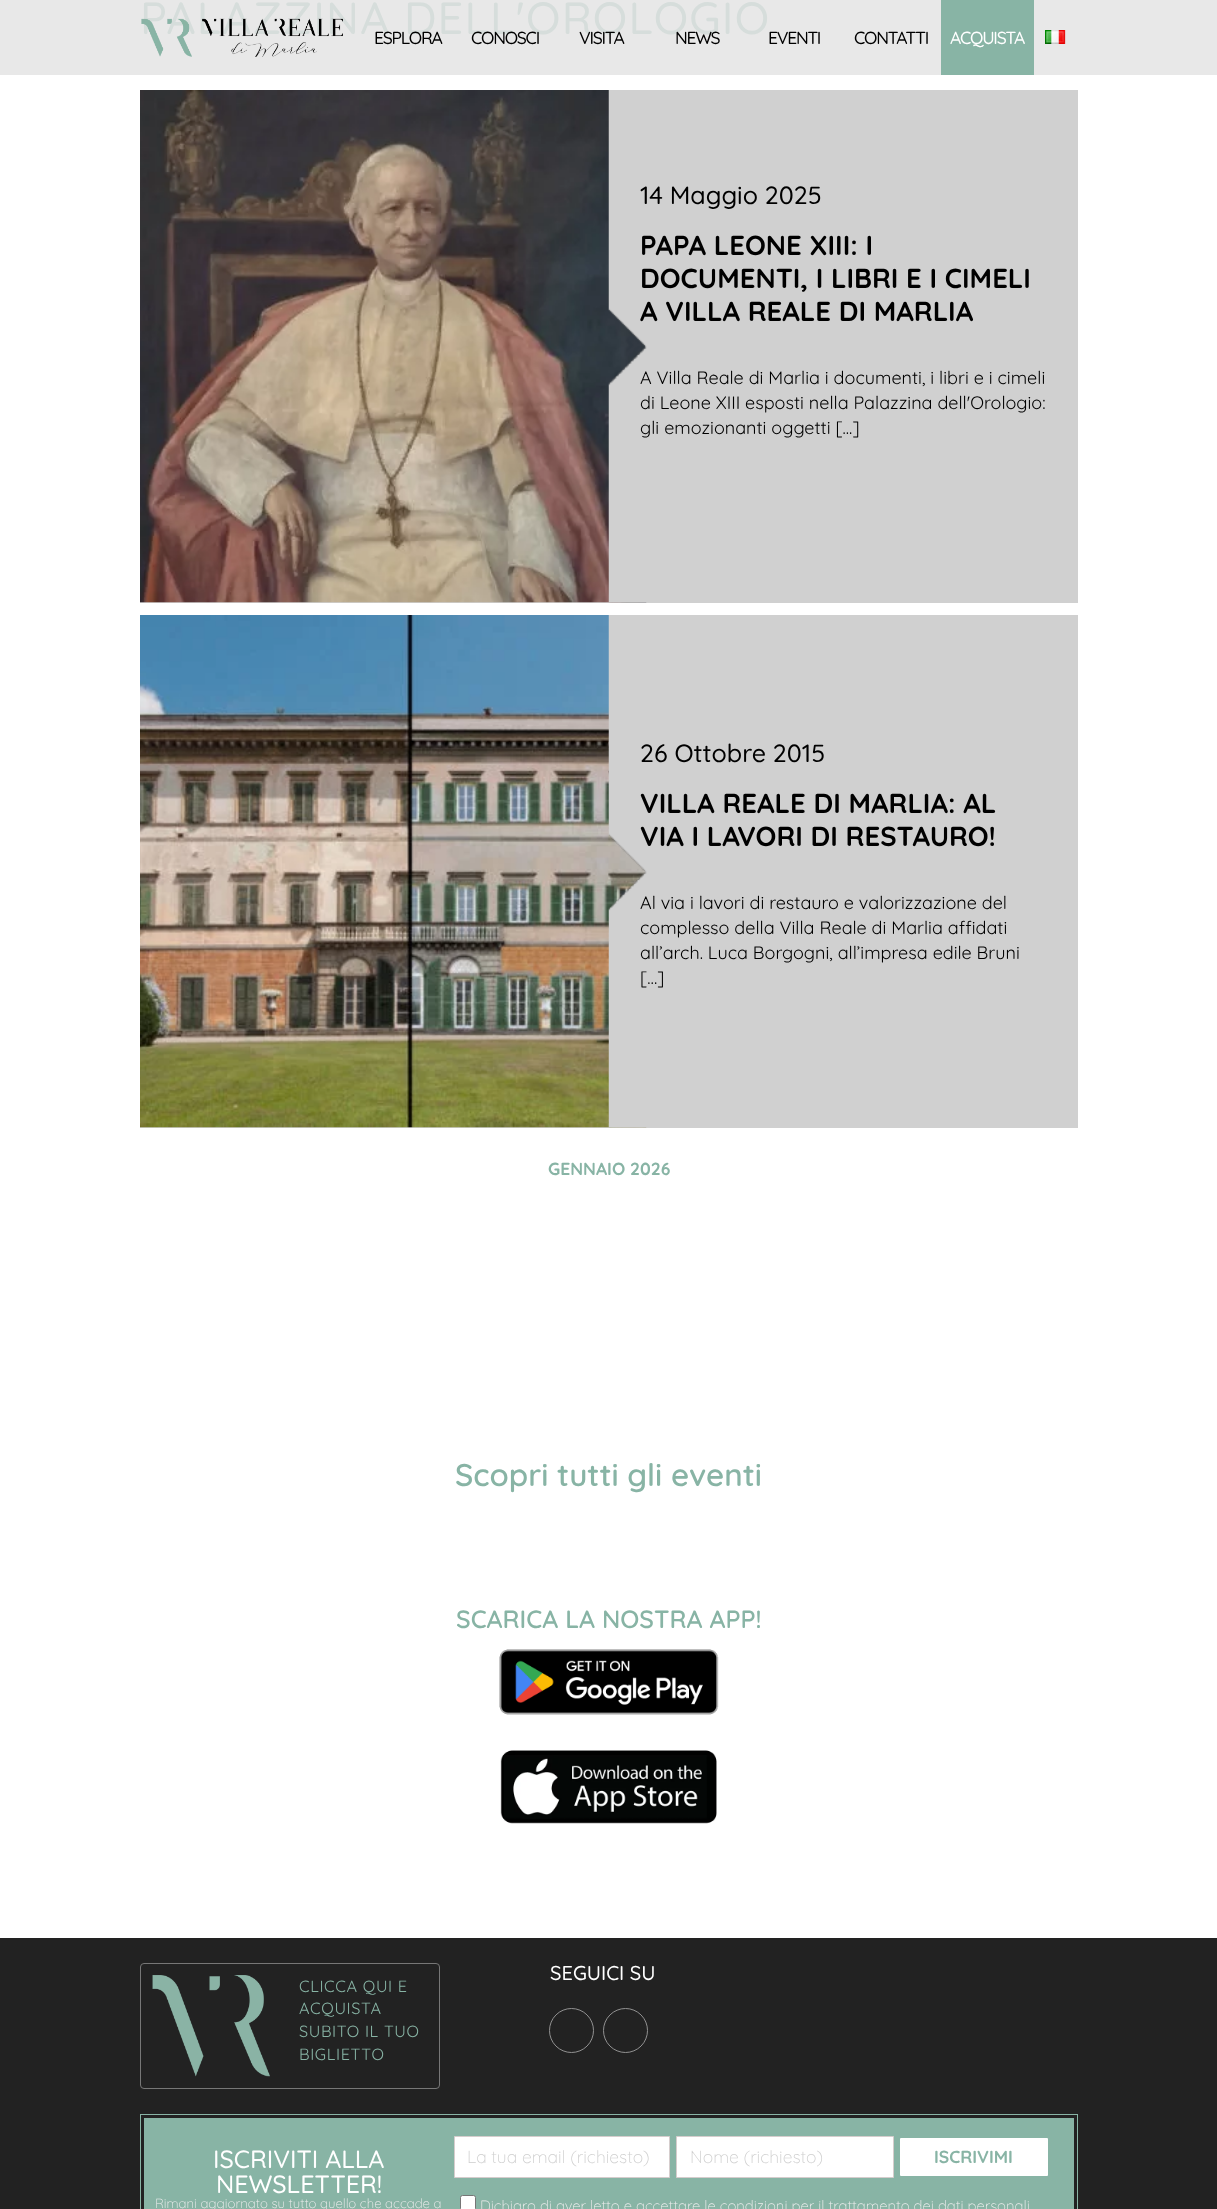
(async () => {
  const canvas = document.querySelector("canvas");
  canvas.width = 1217;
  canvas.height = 2209;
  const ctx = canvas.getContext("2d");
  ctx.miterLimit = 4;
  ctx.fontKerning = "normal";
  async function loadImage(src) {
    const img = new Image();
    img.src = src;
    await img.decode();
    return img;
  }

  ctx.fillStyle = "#ffffff";
  ctx.fillRect(0, 0, 1217, 2209);
  ctx.fillStyle = "#e8e8e8";
  ctx.fillRect(0, 0, 1217, 75);
  ctx.fillStyle = "#d0d0d0";
  ctx.fillRect(140, 90, 938, 513);
  ctx.drawImage(await loadImage("img/1.png"), 140, 90, 507, 513);
  ctx.drawImage(await loadImage("img/2.png"), 608, 90, 39, 513);
  ctx.fillRect(140, 615, 938, 513);
  ctx.drawImage(await loadImage("img/3.png"), 140, 615, 507, 513);
  ctx.drawImage(await loadImage("img/4.png"), 608, 615, 39, 513);
  ctx.drawImage(await loadImage("img/5.png"), 499, 1649, 220, 66);
  ctx.drawImage(await loadImage("img/6.png"), 500, 1750, 217, 74);
  ctx.fillStyle = "#88b4a5";
  ctx.fillRect(941, 0, 93, 75);
  ctx.drawImage(await loadImage("img/8.png"), 1045, 30, 21, 14);
  ctx.fillStyle = "#222222";
  ctx.fillRect(0, 1938, 1217, 271);
  ctx.beginPath();
  ctx.arc(571.5, 2030.5, 22, 0, Math.PI * 2);
  ctx.strokeStyle = "#919191";
  ctx.stroke();
  ctx.beginPath();
  ctx.arc(625.5, 2030.5, 22, 0, Math.PI * 2);
  ctx.stroke();
  ctx.beginPath();
  ctx.roundRect(140.5, 1963.5, 299, 125, 3.5);
  ctx.strokeStyle = "#777777";
  ctx.stroke();
  ctx.drawImage(await loadImage("img/9.png"), 152, 1975, 118, 102);
  ctx.strokeStyle = "#88b4a5";
  ctx.strokeRect(140.5, 2114.5, 937, 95);
  ctx.fillStyle = "#88b4a5";
  ctx.fillRect(144, 2118, 930, 91);
  ctx.fillStyle = "#ffffff";
  ctx.beginPath();
  ctx.rect(454.5, 2136.5, 215, 41);
  ctx.fill();
  ctx.strokeStyle = "#d6cdcd";
  ctx.stroke();
  ctx.beginPath();
  ctx.rect(676.5, 2136.5, 217, 41);
  ctx.fill();
  ctx.stroke();
  ctx.beginPath();
  ctx.roundRect(900, 2138, 148, 38, 1);
  ctx.fill();
  ctx.beginPath();
  ctx.roundRect(460.5, 2195.5, 15, 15, 2);
  ctx.fill();
  ctx.strokeStyle = "#767676";
  ctx.stroke();
  ctx.letterSpacing = "1.25px";
  ctx.font = "500 45px Quicksand";
  ctx.fillStyle = "#d6dddb";
  ctx.fillText("PALAZZINA DELL'OROLOGIO", 140, 34);
  ctx.letterSpacing = "0px";
  ctx.font = "500 25px Quicksand";
  ctx.fillStyle = "#000000";
  ctx.fillText("14 Maggio 2025", 640, 204);
  ctx.font = "bold 27.5px Quicksand";
  for (const [text, x, y] of [
    ["PAPA LEONE XIII: I", 640, 255],
    ["DOCUMENTI, I LIBRI E I CIMELI", 640, 288],
    ["A VILLA REALE DI MARLIA", 640, 321],
  ]) {
    ctx.fillText(text, x, y);
  }
  ctx.font = "18px Quicksand";
  for (const [text, x, y] of [
    ["A Villa Reale di Marlia i documenti, i libri e i cimeli", 640, 384],
    ["di Leone XIII esposti nella Palazzina dell'Orologio:", 640, 409],
    ["gli emozionanti oggetti [...]", 640, 434],
  ]) {
    ctx.fillText(text, x, y);
  }
  ctx.font = "500 25px Quicksand";
  ctx.fillText("26 Ottobre 2015", 640, 762);
  ctx.font = "bold 27.5px Quicksand";
  ctx.fillText("VILLA REALE DI MARLIA: AL", 640, 813);
  ctx.fillText("VIA I LAVORI DI RESTAURO!", 640, 846);
  ctx.font = "18px Quicksand";
  for (const [text, x, y] of [
    ["Al via i lavori di restauro e valorizzazione del", 640, 909],
    ["complesso della Villa Reale di Marlia affidati", 640, 934],
    ["all’arch. Luca Borgogni, all’impresa edile Bruni", 640, 959],
    ["[…]", 640, 984],
  ]) {
    ctx.fillText(text, x, y);
  }
  ctx.font = "bold 17.5px Quicksand";
  ctx.fillStyle = "#88b4a5";
  ctx.fillText("GENNAIO 2026", 548, 1175);
  ctx.font = "600 31.25px Quicksand";
  ctx.fillText("Scopri tutti gli eventi", 455, 1486);
  ctx.font = "600 25px Quicksand";
  ctx.fillText("SCARICA LA NOSTRA APP!", 456, 1628);
  ctx.drawImage(await loadImage("img/7.png"), 141, 18, 202, 39);
  ctx.letterSpacing = "-1.25px";
  ctx.font = "500 17.5px Quicksand";
  ctx.fillStyle = "#000000";
  for (const [text, x, y] of [
    ["ESPLORA", 374, 44],
    ["CONOSCI", 471, 44],
    ["VISITA", 579, 44],
    ["NEWS", 675, 44],
    ["EVENTI", 768, 44],
    ["CONTATTI", 854, 44],
  ]) {
    ctx.fillText(text, x, y);
  }
  ctx.fillStyle = "#ffffff";
  ctx.fillText("ACQUISTA", 950, 44);
  ctx.letterSpacing = "0px";
  ctx.font = "500 20px Quicksand";
  ctx.fillText("SEGUICI SU", 550, 1980);
  ctx.letterSpacing = "0.6px";
  ctx.font = "16.25px Quicksand";
  ctx.fillStyle = "#88b4a5";
  for (const [text, x, y] of [
    ["CLICCA QUI E", 299, 1992],
    ["ACQUISTA", 299, 2014],
    ["SUBITO IL TUO", 299, 2037],
    ["BIGLIETTO", 299, 2060],
  ]) {
    ctx.fillText(text, x, y);
  }
  ctx.letterSpacing = "0px";
  ctx.font = "500 25px Quicksand";
  ctx.fillStyle = "#ffffff";
  ctx.fillText("ISCRIVITI ALLA", 213, 2168);
  ctx.fillText("NEWSLETTER!", 216, 2193);
  ctx.font = "300 13.25px Quicksand";
  ctx.fillStyle = "#eeeeee";
  ctx.fillText("Rimani aggiornato su tutto quello che accade a", 155, 2208);
  ctx.font = "300 17.5px Quicksand";
  ctx.fillStyle = "#cecece";
  ctx.fillText("La tua email (richiesto)", 467, 2163);
  ctx.fillText("Nome (richiesto)", 690, 2163);
  ctx.font = "bold 17.5px Quicksand";
  ctx.fillStyle = "#88b4a5";
  ctx.fillText("ISCRIVIMI", 934, 2163);
  ctx.font = "300 14.9px Quicksand";
  ctx.fillStyle = "#eeeeee";
  ctx.fillText("Dichiaro di aver letto e accettare le condizioni per il trattamento dei dati personali", 480, 2211);
})();
